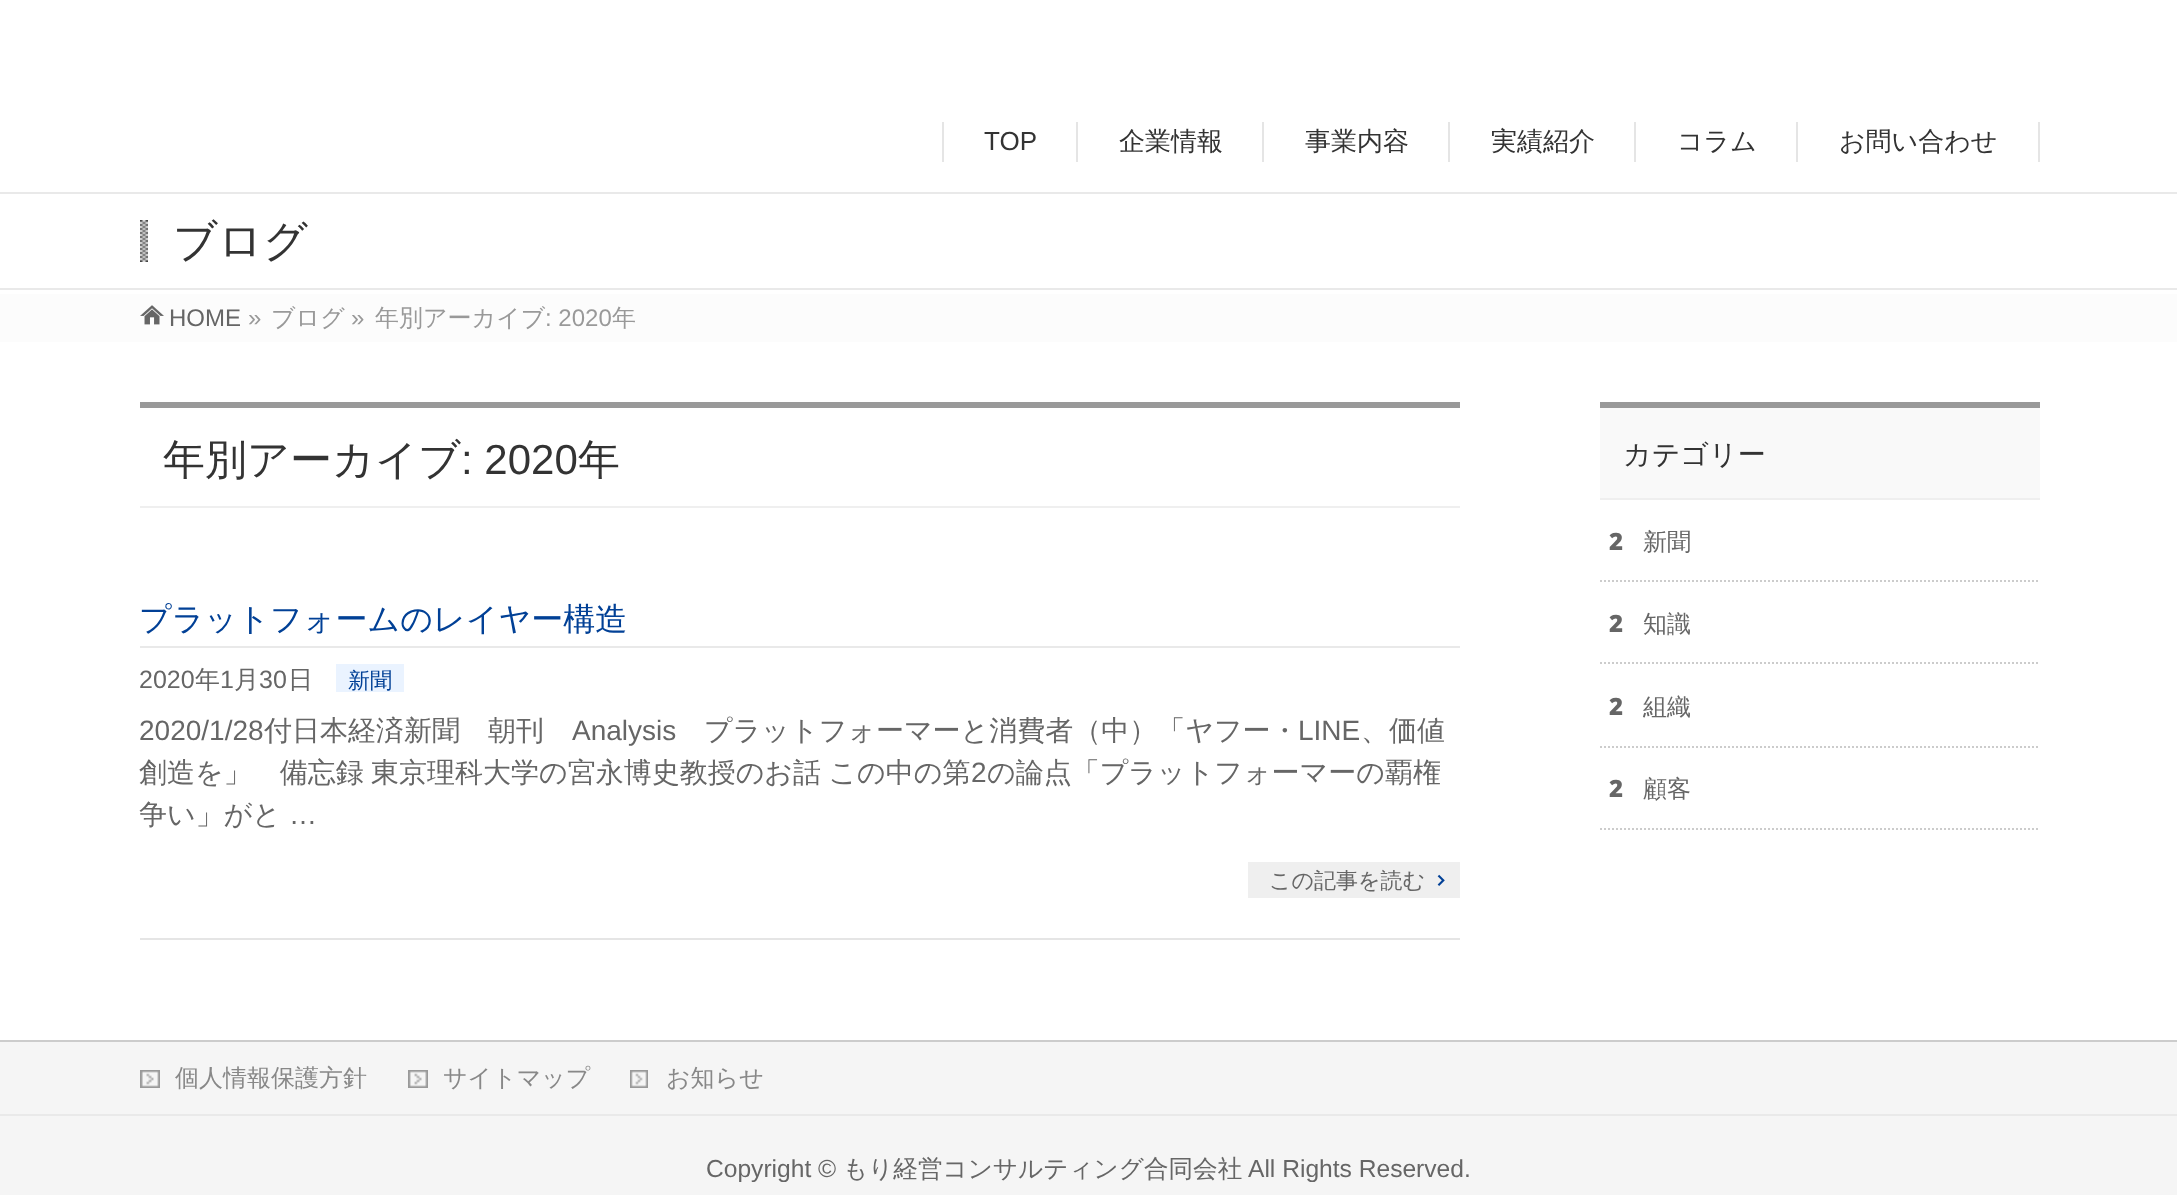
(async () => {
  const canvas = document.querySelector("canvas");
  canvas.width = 2177;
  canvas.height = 1195;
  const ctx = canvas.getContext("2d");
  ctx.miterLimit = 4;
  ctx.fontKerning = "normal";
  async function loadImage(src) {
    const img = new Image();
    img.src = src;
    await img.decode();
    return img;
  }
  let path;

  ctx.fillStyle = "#ffffff";
  ctx.fillRect(0, 0, 2177, 1195);
  for (const [x, y, w, h, color] of [
    [1076, 122, 2, 40, "#e5e5e5"],
    [942, 122, 2, 40, "#e5e5e5"],
    [1262, 122, 2, 40, "#e5e5e5"],
    [1448, 122, 2, 40, "#e5e5e5"],
    [1634, 122, 2, 40, "#e5e5e5"],
    [1796, 122, 2, 40, "#e5e5e5"],
    [2038, 122, 2, 40, "#e5e5e5"],
    [0, 192, 2177, 2, "#e9e9e9"],
    [0, 288, 2177, 2, "#e9e9e9"],
  ]) {
    ctx.fillStyle = color;
    ctx.fillRect(x, y, w, h);
  }
  ctx.drawImage(await loadImage("img/1.png"), 140, 220, 8, 42);
  ctx.fillStyle = "#fcfcfc";
  ctx.fillRect(0, 294, 2177, 48);
  ctx.drawImage(await loadImage("img/2.png"), 140, 305, 24, 20);
  for (const [x, y, w, h, color] of [
    [140, 402, 1320, 6, "#999999"],
    [140, 506, 1320, 2, "#efefef"],
    [140, 938, 1320, 2, "#e5e5e5"],
    [140, 646, 1320, 2, "#e9e9e9"],
    [336, 664, 68, 28, "#eaf3ff"],
    [1248, 862, 212, 36, "#efefef"],
  ]) {
    ctx.fillStyle = color;
    ctx.fillRect(x, y, w, h);
  }
  ctx.drawImage(await loadImage("img/3.png"), 1437, 874, 8, 12);
  for (const [x, y, w, h, color] of [
    [1600, 408, 440, 90, "#f9f9f9"],
    [1600, 402, 440, 6, "#999999"],
    [1600, 498, 440, 2, "#efefef"],
  ]) {
    ctx.fillStyle = color;
    ctx.fillRect(x, y, w, h);
  }
  path = new Path2D("M1600 581H2040");
  ctx.strokeStyle = "#cccccc";
  ctx.lineWidth = 2;
  ctx.setLineDash([2, 2]);
  ctx.stroke(path);
  path = new Path2D("M1600 663H2040");
  ctx.stroke(path);
  path = new Path2D("M1600 747H2040");
  ctx.stroke(path);
  path = new Path2D("M1600 829H2040");
  ctx.stroke(path);
  for (const [x, y, w, h, color] of [
    [0, 1042, 2177, 72, "#f5f5f5"],
    [0, 1040, 2177, 2, "#cccccc"],
    [0, 1114, 2177, 2, "#e9e9e9"],
  ]) {
    ctx.fillStyle = color;
    ctx.fillRect(x, y, w, h);
  }
  ctx.drawImage(await loadImage("img/4.png"), 140, 1070, 20, 18);
  ctx.drawImage(await loadImage("img/5.png"), 408, 1070, 20, 18);
  ctx.drawImage(await loadImage("img/6.png"), 630, 1070, 18, 18);
  ctx.fillStyle = "#f5f5f5";
  ctx.fillRect(0, 1116, 2177, 79);
  ctx.font = "26px Liberation Sans";
  ctx.fillStyle = "#333333";
  ctx.fillText("TOP", 984, 150);
  ctx.font = "500 26px WenQuanYi Zen Hei";
  for (const [text, x, y] of [
    ["企業情報", 1119, 150],
    ["事業内容", 1305, 150],
    ["実績紹介", 1491, 150],
    ["コラム", 1677, 150],
    ["お問い合わせ", 1839, 150],
  ]) {
    ctx.fillText(text, x, y);
  }
  ctx.font = "500 44px WenQuanYi Zen Hei";
  ctx.fillText("ブログ", 173, 256);
  ctx.font = "24px Liberation Sans";
  ctx.fillStyle = "#666666";
  ctx.fillText("HOME", 169, 326);
  ctx.fillStyle = "#999999";
  ctx.fillText("»", 248, 326);
  ctx.font = "500 24px WenQuanYi Zen Hei";
  ctx.fillText("ブログ", 271, 326);
  ctx.font = "24px Liberation Sans";
  ctx.fillText("»", 351, 326);
  ctx.font = "500 24px WenQuanYi Zen Hei";
  ctx.fillText("年別アーカイブ", 375, 326);
  ctx.font = "24px Liberation Sans";
  ctx.fillText(": 2020", 545, 326);
  ctx.font = "500 24px WenQuanYi Zen Hei";
  ctx.fillText("年", 612, 326);
  ctx.font = "500 42px WenQuanYi Zen Hei";
  ctx.fillStyle = "#333333";
  ctx.fillText("年別アーカイブ", 163, 474);
  ctx.font = "42px Liberation Sans";
  ctx.fillText(": 2020", 461, 474);
  ctx.font = "500 42px WenQuanYi Zen Hei";
  ctx.fillText("年", 578, 474);
  ctx.font = "500 32px WenQuanYi Zen Hei";
  ctx.fillStyle = "#014096";
  ctx.fillText("プラットフォームのレイヤー構造", 139, 630);
  ctx.font = "25px Liberation Sans";
  ctx.fillStyle = "#666666";
  ctx.fillText("2020", 139, 688);
  ctx.font = "500 25px WenQuanYi Zen Hei";
  ctx.fillText("年", 195, 688);
  ctx.font = "25px Liberation Sans";
  ctx.fillText("1", 220, 688);
  ctx.font = "500 25px WenQuanYi Zen Hei";
  ctx.fillText("月", 234, 688);
  ctx.font = "25px Liberation Sans";
  ctx.fillText("30", 259, 688);
  ctx.font = "500 25px WenQuanYi Zen Hei";
  ctx.fillText("日", 288, 688);
  ctx.font = "500 22px WenQuanYi Zen Hei";
  ctx.fillStyle = "#014096";
  ctx.fillText("新聞", 348, 688);
  ctx.font = "28px Liberation Sans";
  ctx.fillStyle = "#666666";
  ctx.fillText("2020/1/28", 139, 740);
  ctx.font = "500 28px WenQuanYi Zen Hei";
  ctx.fillText("付日本経済新聞　朝刊", 264, 740);
  ctx.font = "28px Liberation Sans";
  ctx.fillText("Analysis", 572, 740);
  ctx.font = "500 28px WenQuanYi Zen Hei";
  ctx.fillText("プラットフォーマーと消費者（中）「ヤフー・", 704, 740);
  ctx.font = "28px Liberation Sans";
  ctx.fillText("LINE", 1298, 740);
  ctx.font = "500 28px WenQuanYi Zen Hei";
  ctx.fillText("、価値", 1361, 740);
  ctx.wordSpacing = "-1px";
  ctx.fillText("創造を」　備忘録 東京理科大学の宮永博史教授のお話 この中の第", 139, 782);
  ctx.wordSpacing = "0px";
  ctx.font = "28px Liberation Sans";
  ctx.fillText("2", 971, 782);
  ctx.font = "500 28px WenQuanYi Zen Hei";
  ctx.fillText("の論点「プラットフォーマーの覇権", 987, 782);
  ctx.fillText("争い」がと", 139, 824);
  ctx.font = "28px Liberation Sans";
  ctx.fillText("…", 289, 824);
  ctx.font = "500 22px WenQuanYi Zen Hei";
  ctx.fillText("この記事を読む", 1269, 888);
  ctx.font = "500 28px WenQuanYi Zen Hei";
  ctx.fillStyle = "#333333";
  ctx.fillText("カテゴリー", 1623, 464);
  ctx.font = "900 24px Noto Sans";
  ctx.fillStyle = "#666666";
  ctx.fillText("2", 1609, 550);
  ctx.font = "500 24px WenQuanYi Zen Hei";
  ctx.fillText("新聞", 1643, 550);
  ctx.font = "900 24px Noto Sans";
  ctx.fillText("2", 1609, 632);
  ctx.font = "500 24px WenQuanYi Zen Hei";
  ctx.fillText("知識", 1643, 632);
  ctx.font = "900 24px Noto Sans";
  ctx.fillText("2", 1609, 715);
  ctx.font = "500 24px WenQuanYi Zen Hei";
  ctx.fillText("組織", 1643, 715);
  ctx.font = "900 24px Noto Sans";
  ctx.fillText("2", 1609, 797);
  ctx.font = "500 24px WenQuanYi Zen Hei";
  ctx.fillText("顧客", 1643, 797);
  ctx.fillStyle = "#888888";
  for (const [text, x, y] of [
    ["個人情報保護方針", 175, 1086],
    ["サイトマップ", 443, 1086],
    ["お知らせ", 666, 1086],
  ]) {
    ctx.fillText(text, x, y);
  }
  ctx.font = "24.6px Liberation Sans";
  ctx.fillStyle = "#666666";
  ctx.fillText("Copyright ©", 706, 1177);
  ctx.font = "500 24.6px WenQuanYi Zen Hei";
  ctx.fillText("もり経営コンサルティング合同会社", 843, 1177);
  ctx.font = "24.6px Liberation Sans";
  ctx.fillText("All Rights Reserved.", 1248, 1177);
})();
